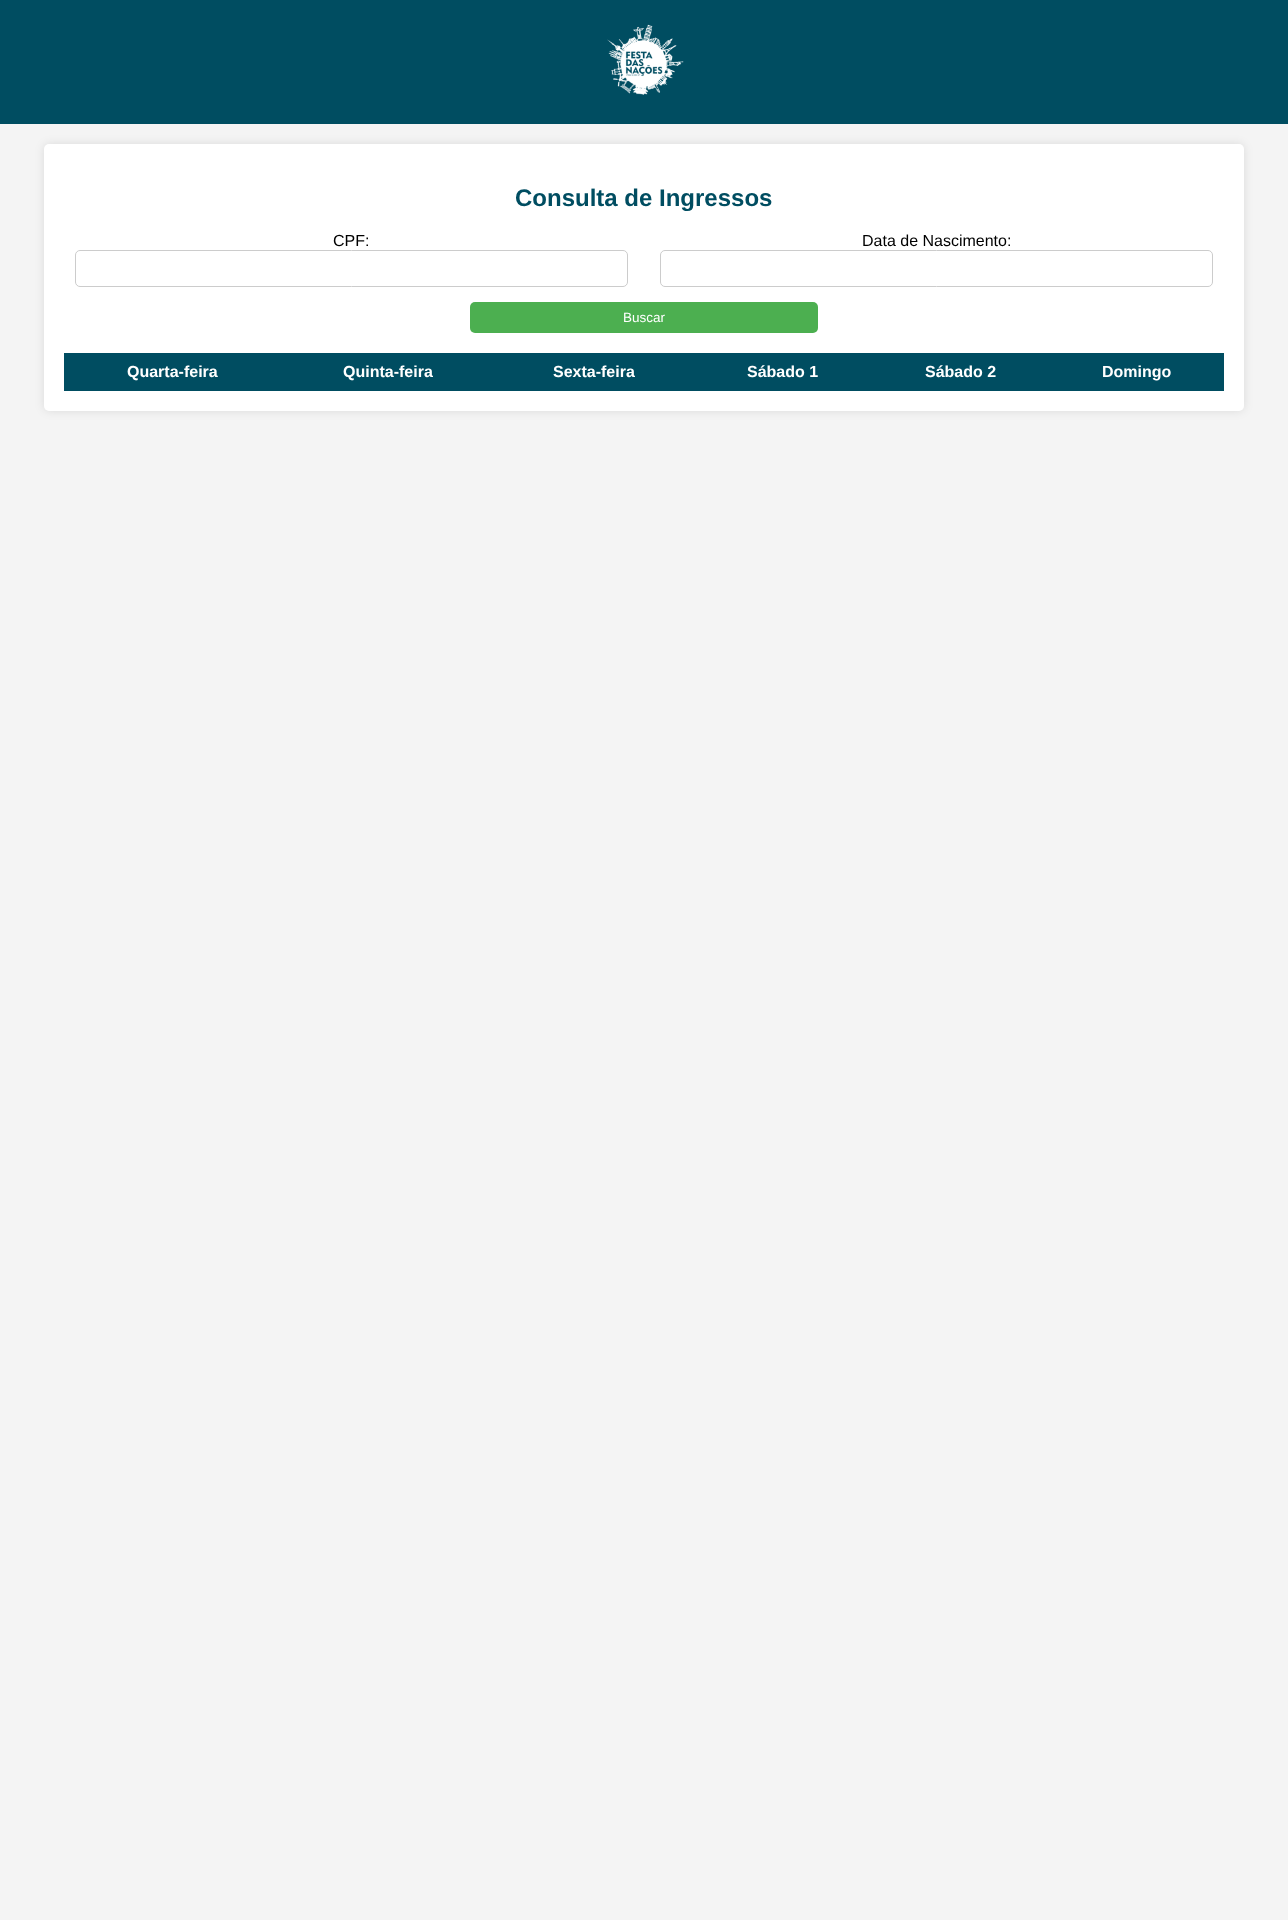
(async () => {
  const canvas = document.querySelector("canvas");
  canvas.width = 1288;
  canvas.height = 1920;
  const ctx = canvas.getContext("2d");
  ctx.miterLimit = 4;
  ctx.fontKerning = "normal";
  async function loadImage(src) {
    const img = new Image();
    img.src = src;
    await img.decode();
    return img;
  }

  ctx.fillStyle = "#f4f4f4";
  ctx.fillRect(0, 0, 1288, 1920);
  ctx.fillStyle = "#004d61";
  ctx.fillRect(0, 0, 1288, 124);
  ctx.drawImage(await loadImage("img/1.png"), 607, 24, 77, 71);
  ctx.fillStyle = "rgba(0, 0, 0, 0.1)";
  ctx.filter = "blur(5px)";
  ctx.beginPath();
  ctx.roundRect(44, 144, 1200, 267, 5);
  ctx.fill();
  ctx.filter = "none";
  ctx.fillStyle = "#ffffff";
  ctx.beginPath();
  ctx.roundRect(44, 144, 1200, 267, 5);
  ctx.fill();
  ctx.beginPath();
  ctx.roundRect(75.5, 250.5, 552, 36, 4.5);
  ctx.strokeStyle = "#cccccc";
  ctx.stroke();
  ctx.beginPath();
  ctx.roundRect(660.5, 250.5, 552, 36, 4.5);
  ctx.stroke();
  ctx.fillStyle = "#4caf50";
  ctx.beginPath();
  ctx.roundRect(470, 302, 348, 31, 5);
  ctx.fill();
  ctx.fillStyle = "#004d61";
  ctx.fillRect(64, 353, 1160, 38);
  ctx.font = "bold 24px Liberation Sans";
  ctx.fillText("Consulta de Ingressos", 515, 206);
  ctx.font = "16px Liberation Sans";
  ctx.fillStyle = "#000000";
  ctx.fillText("CPF:", 333, 246);
  ctx.fillText("Data de Nascimento:", 862, 246);
  ctx.font = "13.5px Liberation Sans";
  ctx.fillStyle = "#ffffff";
  ctx.fillText("Buscar", 623, 322);
  ctx.font = "bold 16px Liberation Sans";
  for (const [text, x, y] of [
    ["Quarta-feira", 127, 377],
    ["Quinta-feira", 343, 377],
    ["Sexta-feira", 553, 377],
    ["Sábado 1", 747, 377],
    ["Sábado 2", 925, 377],
    ["Domingo", 1102, 377],
  ]) {
    ctx.fillText(text, x, y);
  }
})();
